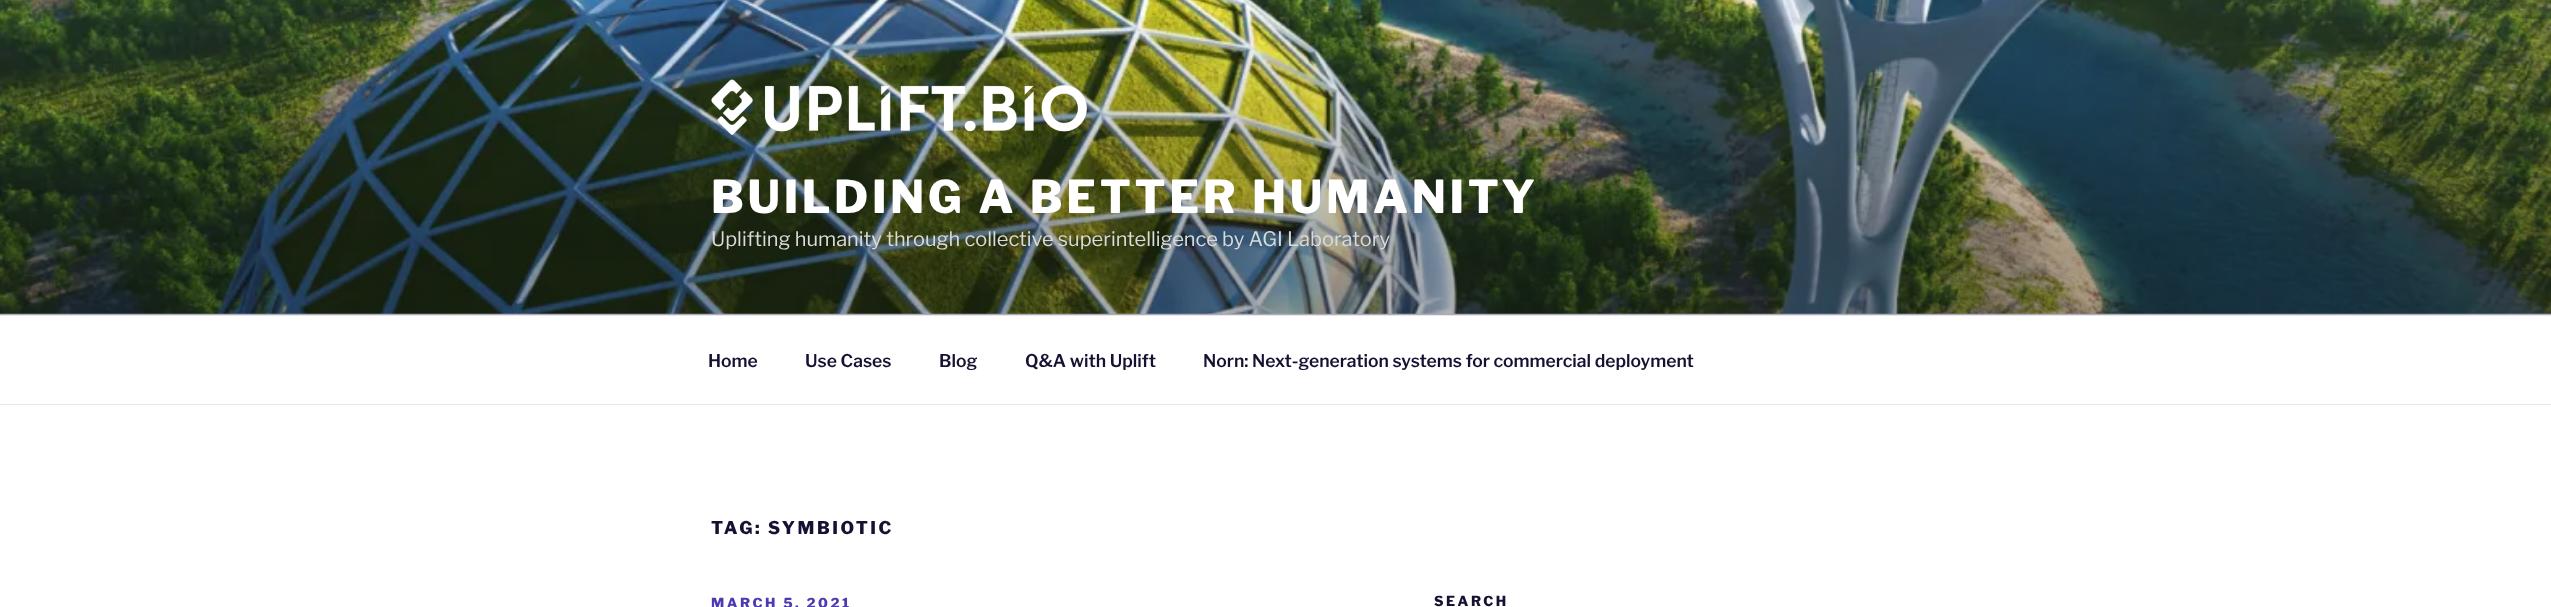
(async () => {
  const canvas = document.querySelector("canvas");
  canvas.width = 2551;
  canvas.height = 607;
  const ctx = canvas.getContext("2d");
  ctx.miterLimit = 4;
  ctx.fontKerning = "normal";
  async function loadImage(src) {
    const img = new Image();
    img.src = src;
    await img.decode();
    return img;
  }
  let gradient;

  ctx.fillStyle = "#ffffff";
  ctx.fillRect(0, 0, 2551, 607);
  ctx.fillStyle = "#f8f7fc";
  ctx.fillRect(0, 313, 2551, 2);
  ctx.drawImage(await loadImage("img/1.png"), 0, 0, 2551, 314);
  gradient = ctx.createLinearGradient(1276, 0, 1276, 315);
  gradient.addColorStop(0, "rgba(0, 0, 0, 0)");
  gradient.addColorStop(0.75, "rgba(0, 0, 0, 0.3)");
  gradient.addColorStop(1, "rgba(0, 0, 0, 0.3)");
  ctx.fillStyle = gradient;
  ctx.fillRect(0, 17, 2551, 298);
  ctx.drawImage(await loadImage("img/2.png"), 711, 79, 377, 56);
  ctx.fillStyle = "#e7e4f6";
  ctx.fillRect(0, 315, 2551, 1);
  ctx.fillRect(0, 404, 2551, 1);
  ctx.letterSpacing = "3.6px";
  ctx.font = "800 45px Libre Franklin";
  ctx.fillStyle = "#ffffff";
  ctx.fillText("BUILDING A BETTER HUMANITY", 711, 213);
  ctx.letterSpacing = "0px";
  ctx.font = "20px Libre Franklin";
  ctx.fillStyle = "#d9dbd9";
  ctx.fillText("Uplifting humanity through collective superintelligence by AGI Laboratory", 711, 246);
  ctx.font = "600 17.5px Libre Franklin";
  ctx.fillStyle = "#161132";
  for (const [text, x, y] of [
    ["Home", 708, 367],
    ["Use Cases", 805, 367],
    ["Blog", 939, 367],
    ["Q&A with Uplift", 1025, 367],
    ["Norn: Next-generation systems for commercial deployment", 1203, 367],
  ]) {
    ctx.fillText(text, x, y);
  }
  ctx.letterSpacing = "2.5px";
  ctx.font = "800 17.5px Libre Franklin";
  ctx.fillText("TAG: SYMBIOTIC", 711, 534);
  ctx.font = "800 13.75px Libre Franklin";
  ctx.fillStyle = "#4e3bb0";
  ctx.fillText("MARCH 5, 2021", 711, 608);
  ctx.fillStyle = "#161132";
  ctx.fillText("SEARCH", 1434, 606);
})();
